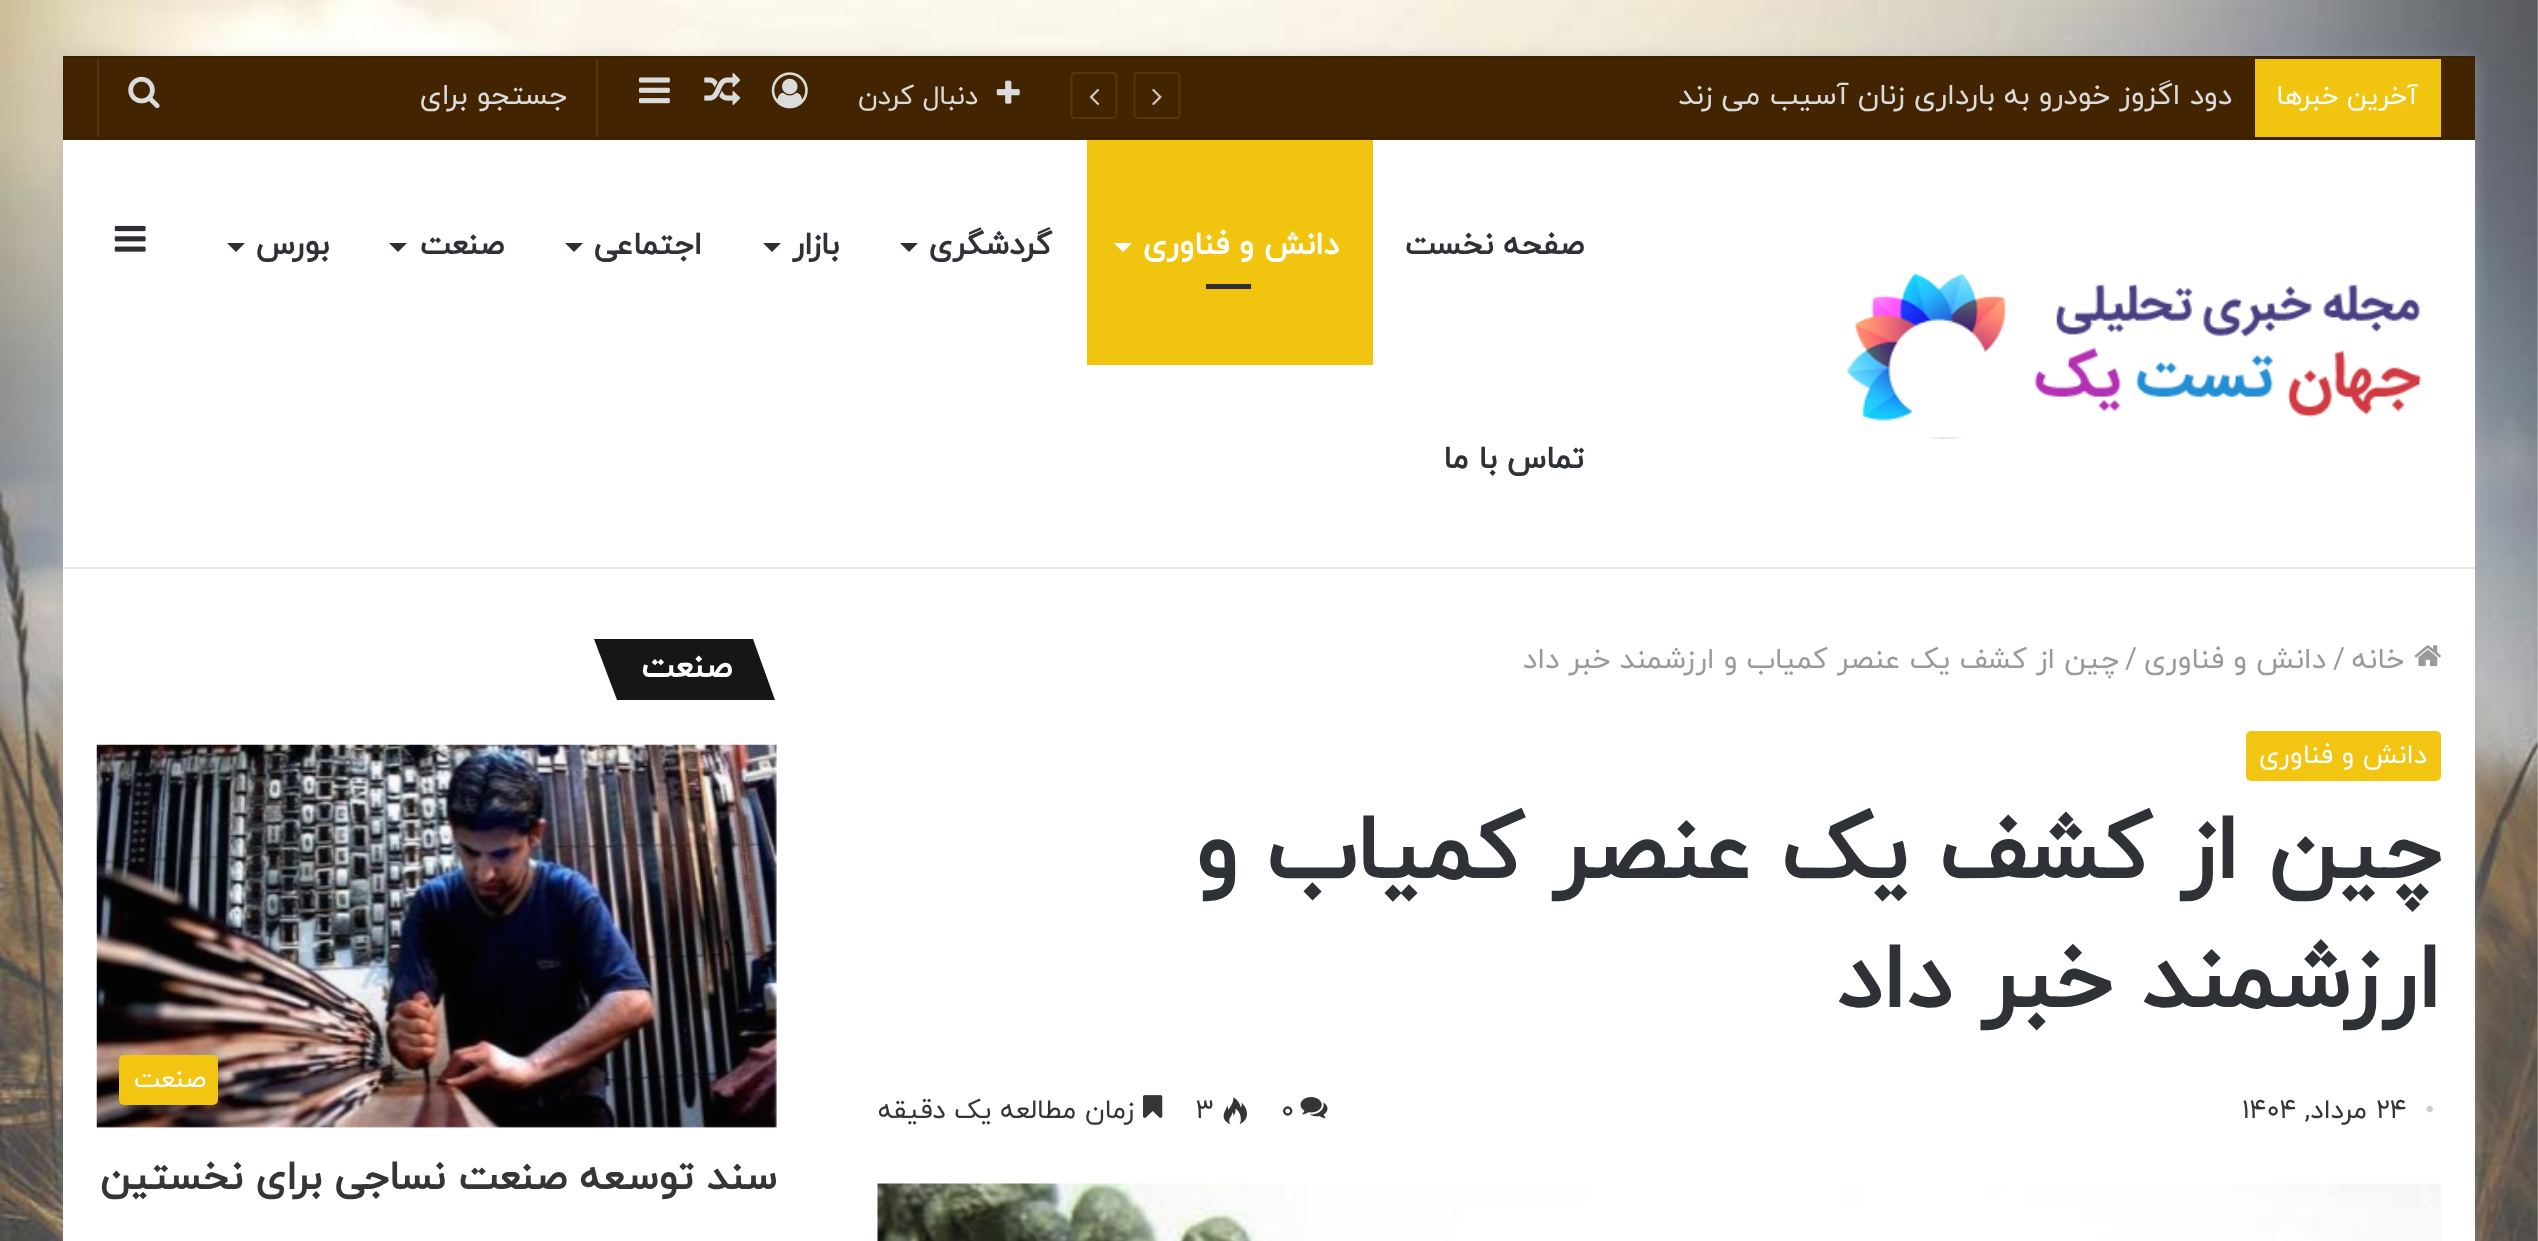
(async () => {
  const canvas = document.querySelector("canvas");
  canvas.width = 2538;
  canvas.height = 1241;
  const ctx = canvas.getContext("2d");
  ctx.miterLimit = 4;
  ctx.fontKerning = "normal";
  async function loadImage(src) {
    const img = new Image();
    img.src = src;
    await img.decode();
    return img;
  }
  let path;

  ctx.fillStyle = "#ffffff";
  ctx.fillRect(0, 0, 2538, 1241);
  ctx.drawImage(await loadImage("img/1.png"), 0, 0, 2538, 1241);
  ctx.fillStyle = "rgba(171, 171, 171, 0.5)";
  ctx.filter = "blur(8px)";
  ctx.beginPath();
  ctx.rect(63, 59, 2412, 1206);
  ctx.fill();
  ctx.filter = "none";
  for (const [x, y, w, h, color] of [
    [63, 140, 2412, 1101, "#ffffff"],
    [63, 58, 2412, 82, "#422500"],
    [63, 56, 2412, 2, "#3b2100"],
    [63, 137, 2412, 2, "#3b2100"],
    [2255, 59, 186, 78, "#f1c40f"],
  ]) {
    ctx.fillStyle = color;
    ctx.fillRect(x, y, w, h);
  }
  path = new Path2D("M1176.5 118H1138C1136 118 1134.5 116.5 1134.5 115V76.5C1134.5 74.5 1136 73 1138 73H1176.5C1178 73 1179.5 74.5 1179.5 76.5V115C1179.5 116.5 1178 118 1176.5 118Z");
  ctx.strokeStyle = "#513614";
  ctx.lineWidth = 2.2;
  ctx.stroke(path);
  ctx.drawImage(await loadImage("img/2.png"), 1152, 88, 10, 18);
  path = new Path2D("M1113.5 118H1075C1073 118 1071.5 116.5 1071.5 115V76.5C1071.5 74.5 1073 73 1075 73H1113.5C1115 73 1116.5 74.5 1116.5 76.5V115C1116.5 116.5 1115 118 1113.5 118Z");
  ctx.stroke(path);
  ctx.drawImage(await loadImage("img/3.png"), 1089, 88, 11, 18);
  ctx.drawImage(await loadImage("img/4.png"), 996, 80, 24, 24);
  ctx.drawImage(await loadImage("img/5.png"), 771, 72, 37, 37);
  ctx.drawImage(await loadImage("img/6.png"), 704, 73, 37, 33);
  ctx.drawImage(await loadImage("img/7.png"), 639, 77, 31, 27);
  ctx.fillStyle = "#513614";
  ctx.fillRect(596, 59, 2, 78);
  ctx.fillRect(97, 59, 2, 78);
  ctx.drawImage(await loadImage("img/8.png"), 128, 76, 32, 33);
  ctx.fillStyle = "#e6e6e6";
  ctx.fillRect(63, 567, 2412, 2);
  ctx.drawImage(await loadImage("img/9.png"), 1846, 273, 576, 166);
  ctx.fillStyle = "#f1c40f";
  ctx.fillRect(1087, 140, 286, 225);
  ctx.fillStyle = "#ffffff";
  path = new Path2D("M1114 243H1132L1123 252Z");
  ctx.fill(path);
  ctx.fillStyle = "#2c2f34";
  ctx.fillRect(1206, 284, 45, 5);
  path = new Path2D("M900 243H918L909 252Z");
  ctx.fill(path);
  path = new Path2D("M763 243H781L772 252Z");
  ctx.fill(path);
  path = new Path2D("M565 243H583L574 252Z");
  ctx.fill(path);
  path = new Path2D("M389 243H407L398 252Z");
  ctx.fill(path);
  path = new Path2D("M227 243H245L236 252Z");
  ctx.fill(path);
  ctx.drawImage(await loadImage("img/10.png"), 114, 225, 32, 27);
  ctx.drawImage(await loadImage("img/11.png"), 2414, 645, 27, 22);
  ctx.fillStyle = "#f1c511";
  ctx.beginPath();
  ctx.roundRect(2246, 731, 195, 50, 5);
  ctx.fill();
  ctx.drawImage(await loadImage("img/12.png"), 1300, 1097, 28, 22);
  ctx.drawImage(await loadImage("img/13.png"), 1223, 1097, 24, 28);
  ctx.drawImage(await loadImage("img/14.png"), 1143, 1095, 20, 23);
  ctx.drawImage(await loadImage("img/15.png"), 877, 1183, 1564, 58);
  ctx.fillStyle = "#161616";
  path = new Path2D("M594 639H753L775 700H617Z");
  ctx.fill(path);
  ctx.drawImage(await loadImage("img/16.png"), 96, 744, 681, 384);
  ctx.fillStyle = "#f1c511";
  ctx.beginPath();
  ctx.roundRect(119, 1055, 99, 50, 5);
  ctx.fill();
  ctx.direction = "rtl";
  ctx.font = "27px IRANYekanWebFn";
  ctx.fillStyle = "#ffffff";
  ctx.fillText("آخرین خبرها", 2418, 104);
  ctx.font = "29.25px IRANYekanWebFn";
  ctx.fillStyle = "#dbdbdb";
  ctx.fillText("دود اگزوز خودرو به بارداری زنان آسیب می زند", 2232, 104);
  ctx.font = "27px IRANYekanWebFn";
  ctx.fillText("دنبال کردن", 978, 104);
  ctx.font = "29.25px IRANYekanWebFn";
  ctx.fillText("جستجو برای", 567, 104);
  ctx.font = "bold 31.5px IRANYekanWebFn";
  ctx.fillStyle = "#2e3136";
  ctx.fillText("صفحه نخست", 1584, 254);
  ctx.fillStyle = "#ffffff";
  ctx.fillText("دانش و فناوری", 1339, 254);
  ctx.fillStyle = "#2e3136";
  for (const [text, x, y] of [
    ["گردشگری", 1052, 254],
    ["بازار", 839, 254],
    ["اجتماعی", 702, 254],
    ["صنعت", 504, 254],
    ["بورس", 329, 254],
    ["تماس با ما", 1584, 468],
  ]) {
    ctx.fillText(text, x, y);
  }
  ctx.font = "29.25px IRANYekanWebFn";
  ctx.fillStyle = "#9a9a9a";
  ctx.fillText("خانه", 2404, 668);
  ctx.direction = "ltr";
  ctx.fillText("/", 2333, 668);
  ctx.direction = "rtl";
  ctx.fillText("دانش و فناوری", 2326, 668);
  ctx.direction = "ltr";
  ctx.fillText("/", 2125, 668);
  ctx.direction = "rtl";
  ctx.fillText("چین از کشف یک عنصر کمیاب و ارزشمند خبر داد", 2119, 668);
  ctx.font = "27px IRANYekanWebFn";
  ctx.fillStyle = "#ffffff";
  ctx.fillText("دانش و فناوری", 2427, 763);
  ctx.font = "bold 92.25px IRANYekanWebFn";
  ctx.fillStyle = "#2e3136";
  ctx.fillText("چین از کشف یک عنصر کمیاب و", 2441, 878);
  ctx.fillText("ارزشمند خبر داد", 2441, 1007);
  ctx.direction = "ltr";
  ctx.font = "27px Liberation Serif";
  ctx.fillStyle = "#cdcdcd";
  ctx.fillText("•", 2425, 1118);
  ctx.font = "27px IRANYekanWebFn";
  ctx.fillStyle = "#353535";
  ctx.fillText("24", 2376, 1118);
  ctx.direction = "rtl";
  ctx.fillText("مرداد,", 2367, 1118);
  ctx.direction = "ltr";
  for (const [text, x, y] of [
    ["1404", 2242, 1118],
    ["0", 1281, 1118],
    ["3", 1196, 1118],
  ]) {
    ctx.fillText(text, x, y);
  }
  ctx.direction = "rtl";
  ctx.fillText("زمان مطالعه یک دقیقه", 1134, 1118);
  ctx.font = "bold 34px IRANYekanWebFn";
  ctx.fillStyle = "#ffffff";
  ctx.fillText("صنعت", 732, 677);
  ctx.font = "27px IRANYekanWebFn";
  ctx.fillText("صنعت", 206, 1087);
  ctx.font = "bold 40.5px IRANYekanWebFn";
  ctx.fillStyle = "#353535";
  ctx.fillText("سند توسعه صنعت نساجی برای نخستین", 777, 1189);
})();
